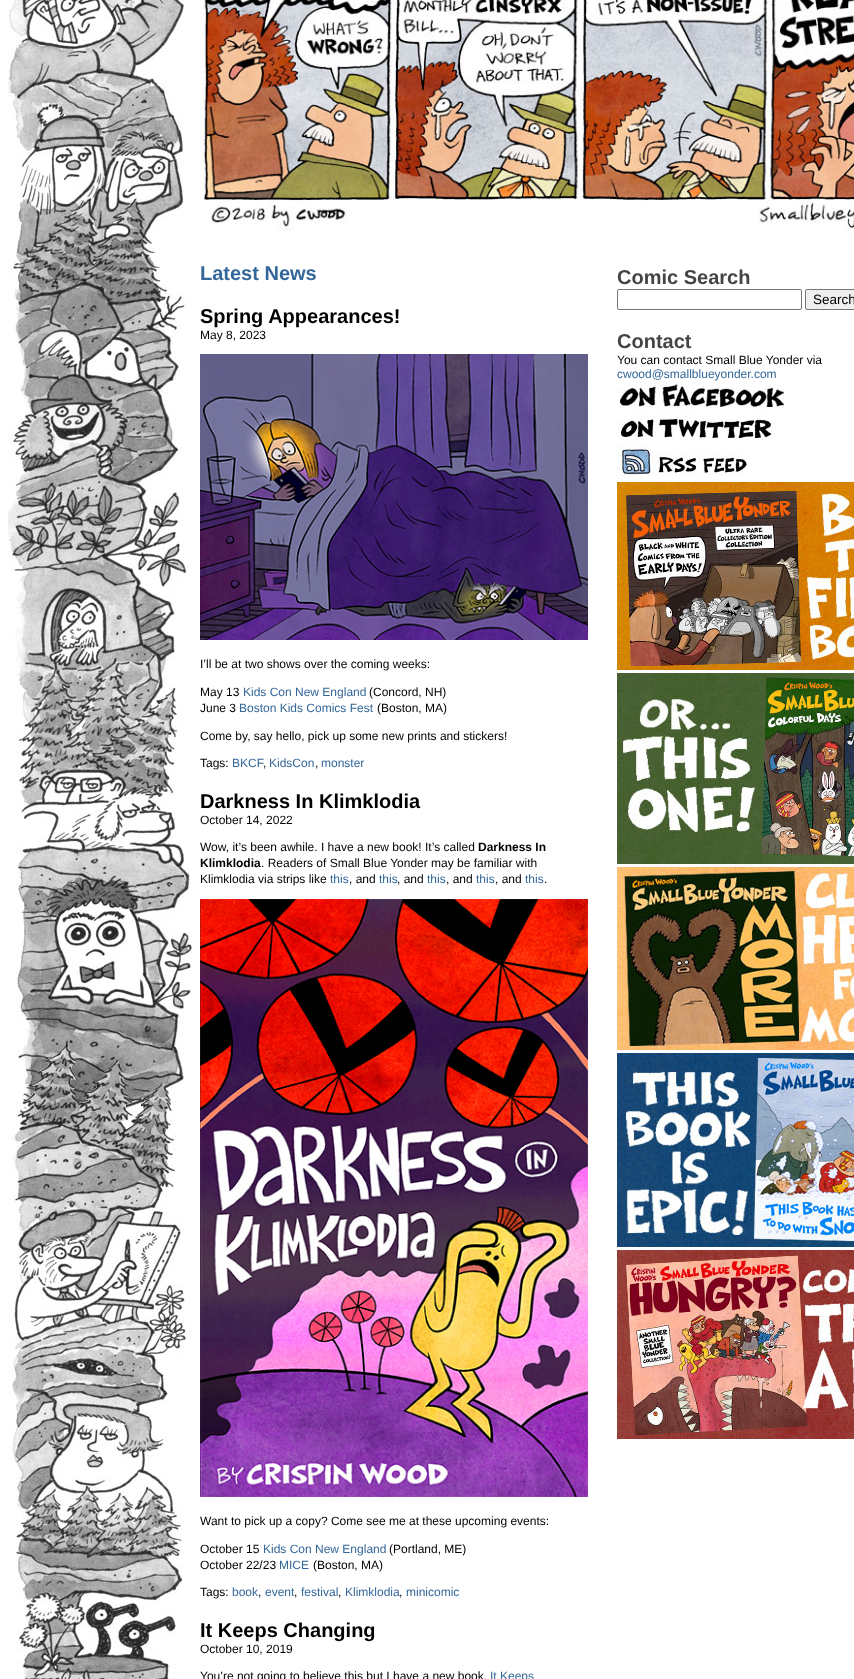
(async () => {
  const canvas = document.querySelector("canvas");
  canvas.width = 854;
  canvas.height = 1679;
  const ctx = canvas.getContext("2d");
  ctx.miterLimit = 4;
  ctx.fontKerning = "normal";
  async function loadImage(src) {
    const img = new Image();
    img.src = src;
    await img.decode();
    return img;
  }

  ctx.fillStyle = "#ffffff";
  ctx.fillRect(0, 0, 854, 1679);
  ctx.drawImage(await loadImage("img/1.png"), 8, 0, 184, 1679);
  ctx.drawImage(await loadImage("img/2.png"), 200, 0, 654, 230);
  ctx.drawImage(await loadImage("img/3.png"), 200, 354, 388, 286);
  ctx.drawImage(await loadImage("img/4.png"), 200, 899, 388, 598);
  ctx.beginPath();
  ctx.roundRect(617.5, 289.5, 184, 20, 1.5);
  ctx.strokeStyle = "#767676";
  ctx.stroke();
  ctx.fillStyle = "#efefef";
  ctx.beginPath();
  ctx.roundRect(805.5, 289.5, 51, 20, 1.5);
  ctx.fill();
  ctx.stroke();
  ctx.drawImage(await loadImage("img/5.png"), 617, 381, 168, 29);
  ctx.drawImage(await loadImage("img/6.png"), 617, 413, 160, 28);
  ctx.drawImage(await loadImage("img/7.png"), 617, 444, 131, 32);
  ctx.drawImage(await loadImage("img/8.png"), 617, 482, 237, 188);
  ctx.drawImage(await loadImage("img/9.png"), 617, 673, 237, 191);
  ctx.drawImage(await loadImage("img/10.png"), 617, 867, 237, 183);
  ctx.drawImage(await loadImage("img/11.png"), 617, 1053, 237, 194);
  ctx.drawImage(await loadImage("img/12.png"), 617, 1250, 237, 189);
  ctx.font = "bold 20px Liberation Sans";
  ctx.fillStyle = "#336699";
  ctx.fillText("Latest News", 200, 280);
  ctx.fillStyle = "#000000";
  ctx.fillText("Spring Appearances!", 200, 323);
  ctx.font = "12px Liberation Sans";
  for (const [text, x, y] of [
    ["May 8, 2023", 200, 339],
    ["I’ll be at two shows over the coming weeks:", 200, 668],
    ["May 13", 200, 696],
  ]) {
    ctx.fillText(text, x, y);
  }
  ctx.fillStyle = "#336699";
  ctx.fillText("Kids Con New England", 243, 696);
  ctx.fillStyle = "#000000";
  ctx.fillText("(Concord, NH)", 369, 696);
  ctx.fillText("June 3", 200, 712);
  ctx.fillStyle = "#336699";
  ctx.fillText("Boston Kids Comics Fest", 239, 712);
  ctx.fillStyle = "#000000";
  for (const [text, x, y] of [
    ["(Boston, MA)", 377, 712],
    ["Come by, say hello, pick up some new prints and stickers!", 200, 740],
    ["Tags:", 200, 767],
  ]) {
    ctx.fillText(text, x, y);
  }
  ctx.fillStyle = "#336699";
  for (const [text, x, y] of [
    ["BKCF", 232, 767],
    ["KidsCon", 269, 767],
    ["monster", 321, 767],
  ]) {
    ctx.fillText(text, x, y);
  }
  ctx.fillStyle = "#000000";
  ctx.fillText(",", 263, 767);
  ctx.fillText(",", 315, 767);
  ctx.font = "bold 20px Liberation Sans";
  ctx.fillText("Darkness In Klimklodia", 200, 808);
  ctx.font = "12px Liberation Sans";
  ctx.fillText("October 14, 2022", 200, 824);
  ctx.fillText("Wow, it’s been awhile. I have a new book! It’s called", 200, 851);
  ctx.font = "bold 12px Liberation Sans";
  ctx.fillText("Darkness In", 478, 851);
  ctx.fillText("Klimklodia", 200, 867);
  ctx.font = "12px Liberation Sans";
  ctx.fillText(". Readers of Small Blue Yonder may be familiar with", 261, 867);
  ctx.fillText("Klimklodia via strips like", 200, 883);
  ctx.fillStyle = "#336699";
  ctx.fillText("this", 330, 883);
  ctx.fillStyle = "#000000";
  ctx.fillText(", and", 349, 883);
  ctx.fillStyle = "#336699";
  ctx.fillText("this", 379, 883);
  ctx.fillStyle = "#000000";
  ctx.fillText(", and", 397, 883);
  ctx.fillStyle = "#336699";
  ctx.fillText("this", 427, 883);
  ctx.fillStyle = "#000000";
  ctx.fillText(", and", 446, 883);
  ctx.fillStyle = "#336699";
  ctx.fillText("this", 476, 883);
  ctx.fillStyle = "#000000";
  ctx.fillText(", and", 495, 883);
  ctx.fillStyle = "#336699";
  ctx.fillText("this", 525, 883);
  ctx.fillStyle = "#000000";
  for (const [text, x, y] of [
    [".", 544, 883],
    ["Want to pick up a copy? Come see me at these upcoming events:", 200, 1525],
    ["October 15", 200, 1553],
  ]) {
    ctx.fillText(text, x, y);
  }
  ctx.fillStyle = "#336699";
  ctx.fillText("Kids Con New England", 263, 1553);
  ctx.fillStyle = "#000000";
  ctx.fillText("(Portland, ME)", 389, 1553);
  ctx.fillText("October 22/23", 200, 1569);
  ctx.fillStyle = "#336699";
  ctx.fillText("MICE", 279, 1569);
  ctx.fillStyle = "#000000";
  ctx.fillText("(Boston, MA)", 313, 1569);
  ctx.fillText("Tags:", 200, 1596);
  ctx.fillStyle = "#336699";
  ctx.fillText("book", 232, 1596);
  ctx.fillStyle = "#000000";
  ctx.fillText(",", 258, 1596);
  ctx.fillStyle = "#336699";
  ctx.fillText("event", 265, 1596);
  ctx.fillStyle = "#000000";
  ctx.fillText(",", 294, 1596);
  ctx.fillStyle = "#336699";
  ctx.fillText("festival", 301, 1596);
  ctx.fillStyle = "#000000";
  ctx.fillText(",", 338, 1596);
  ctx.fillStyle = "#336699";
  ctx.fillText("Klimklodia", 345, 1596);
  ctx.fillStyle = "#000000";
  ctx.fillText(",", 399, 1596);
  ctx.fillStyle = "#336699";
  ctx.fillText("minicomic", 406, 1596);
  ctx.font = "bold 20px Liberation Sans";
  ctx.fillStyle = "#000000";
  ctx.fillText("It Keeps Changing", 200, 1637);
  ctx.font = "12px Liberation Sans";
  ctx.fillText("October 10, 2019", 200, 1653);
  ctx.fillText("You’re not going to believe this but I have a new book.", 200, 1680);
  ctx.fillStyle = "#336699";
  ctx.fillText("It Keeps", 490, 1680);
  ctx.font = "bold 20px Liberation Sans";
  ctx.fillStyle = "#444444";
  ctx.fillText("Comic Search", 617, 284);
  ctx.font = "13.5px Liberation Sans";
  ctx.fillStyle = "#000000";
  ctx.fillText("Search", 813, 304);
  ctx.font = "bold 20px Liberation Sans";
  ctx.fillStyle = "#444444";
  ctx.fillText("Contact", 617, 348);
  ctx.font = "12px Liberation Sans";
  ctx.fillStyle = "#000000";
  ctx.fillText("You can contact Small Blue Yonder via", 617, 364);
  ctx.fillStyle = "#336699";
  ctx.fillText("cwood@smallblueyonder.com", 617, 378);
})();
